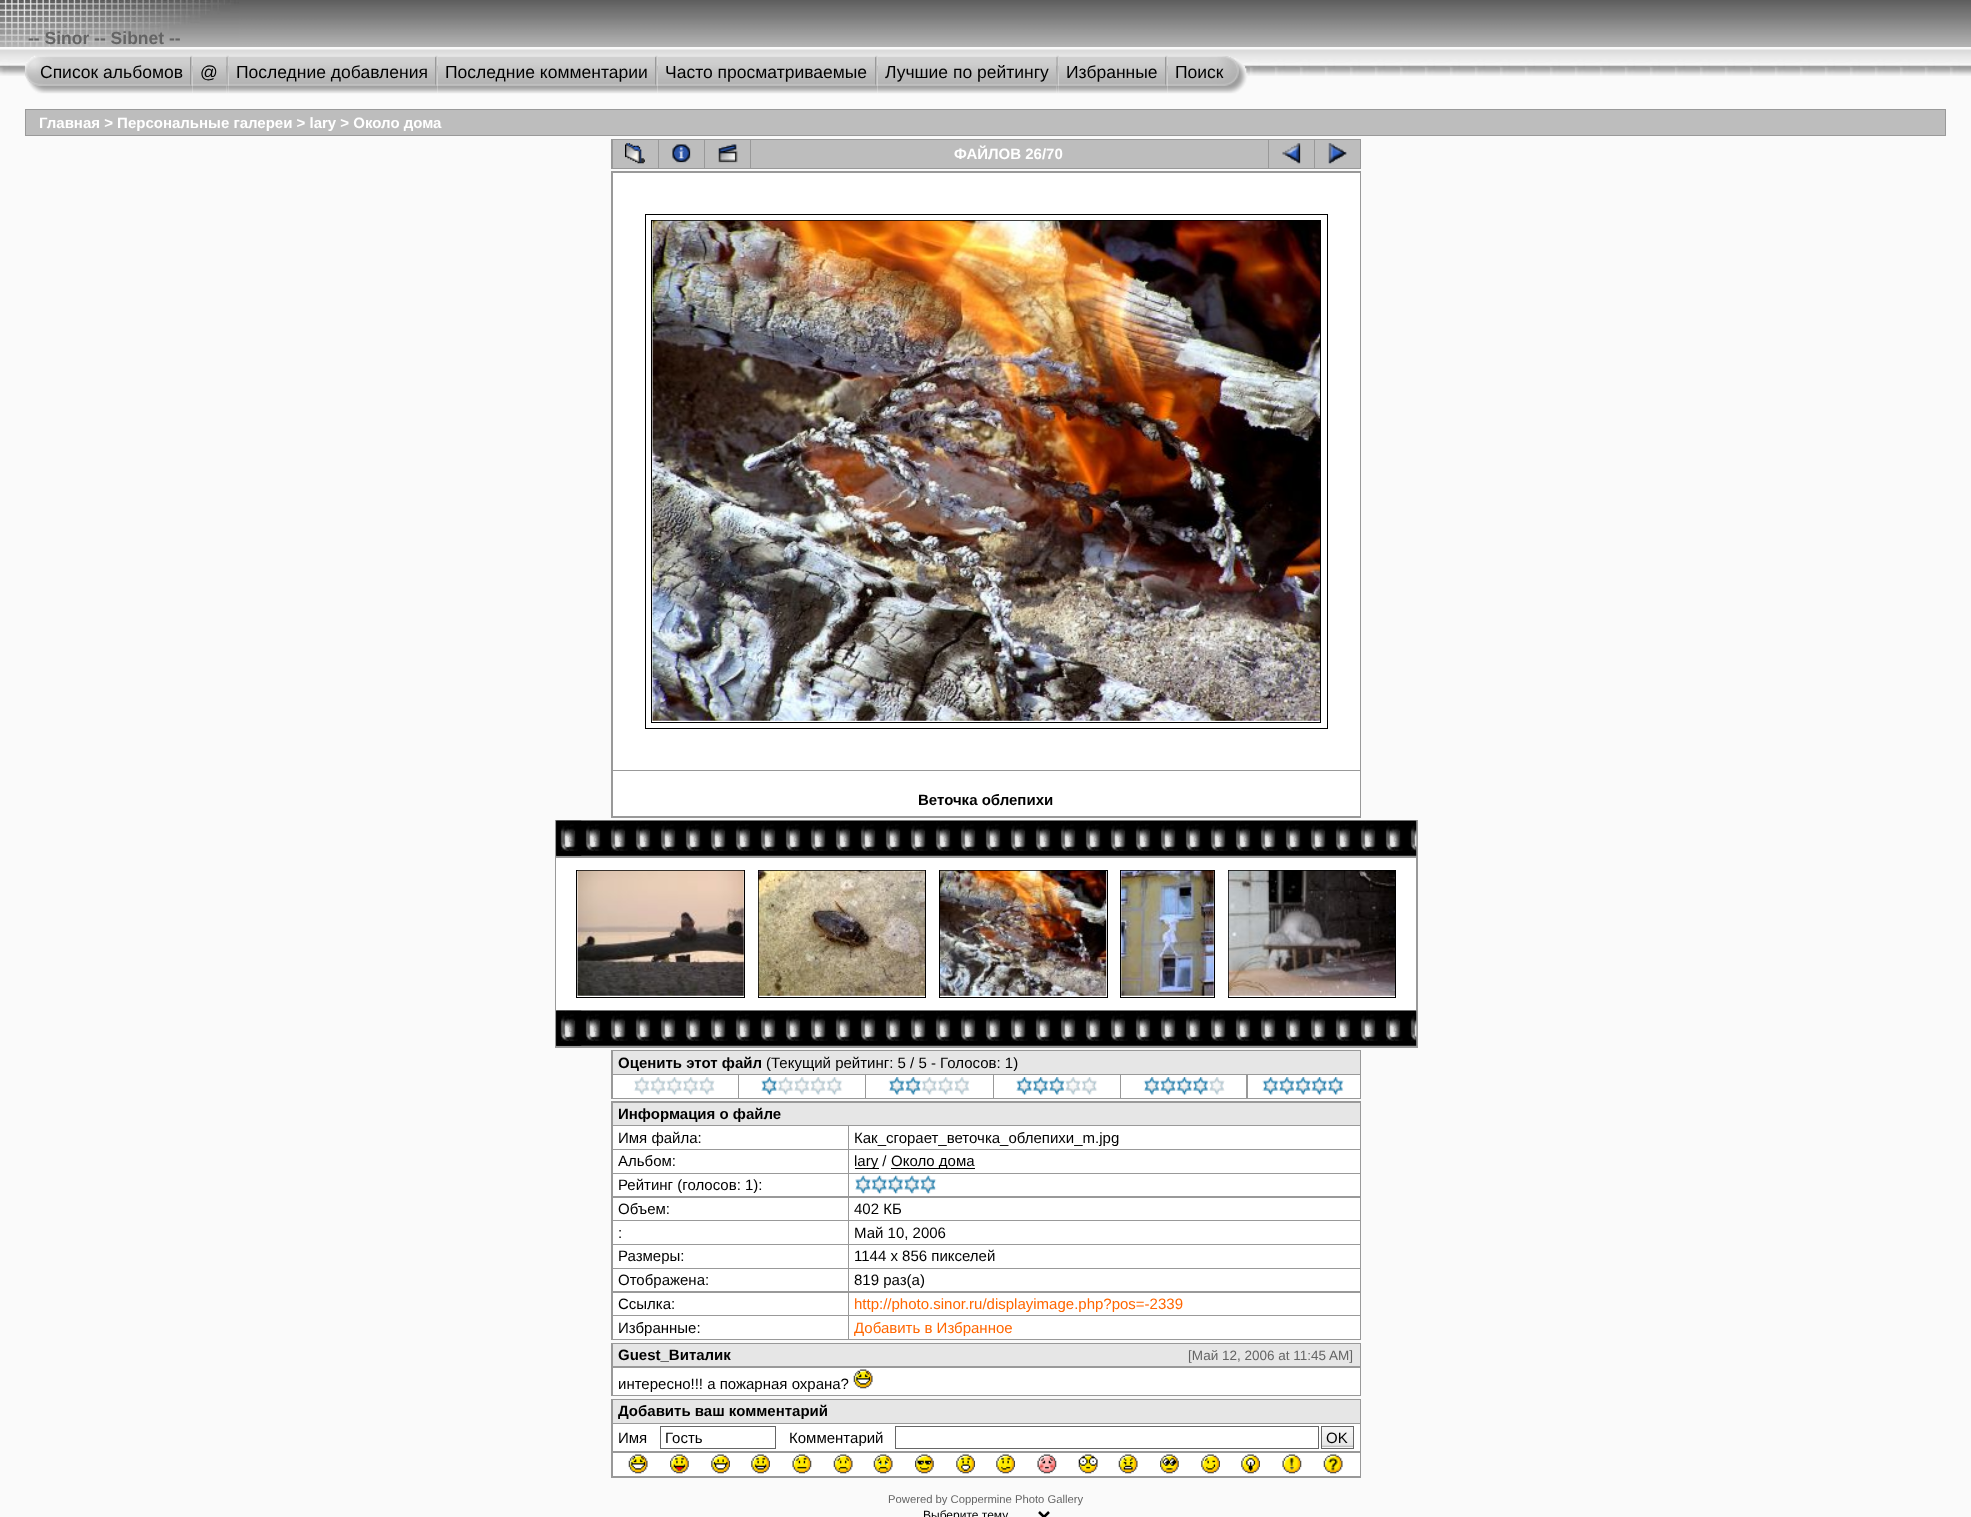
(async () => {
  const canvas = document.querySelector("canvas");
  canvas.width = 1971;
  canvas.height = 1517;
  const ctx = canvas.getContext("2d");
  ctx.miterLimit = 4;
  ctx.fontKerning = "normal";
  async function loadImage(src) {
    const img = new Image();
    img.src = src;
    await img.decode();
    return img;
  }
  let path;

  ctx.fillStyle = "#fafafa";
  ctx.fillRect(0, 0, 1971, 1517);
  ctx.drawImage(await loadImage("img/1.png"), 239, 0, 1732, 47);
  ctx.drawImage(await loadImage("img/2.png"), 0, 0, 239, 47);
  ctx.drawImage(await loadImage("img/3.png"), 0, 49, 1971, 27);
  ctx.drawImage(await loadImage("img/4.png"), 25, 55, 165, 39);
  ctx.drawImage(await loadImage("img/5.png"), 190, 55, 3, 39);
  ctx.drawImage(await loadImage("img/7.png"), 226, 55, 3, 39);
  ctx.drawImage(await loadImage("img/6.png"), 192, 56, 35, 38);
  ctx.drawImage(await loadImage("img/8.png"), 228, 56, 207, 38);
  ctx.drawImage(await loadImage("img/5.png"), 435, 55, 3, 39);
  ctx.drawImage(await loadImage("img/9.png"), 437, 56, 218, 38);
  ctx.drawImage(await loadImage("img/10.png"), 655, 55, 3, 39);
  ctx.drawImage(await loadImage("img/11.png"), 657, 56, 218, 38);
  ctx.drawImage(await loadImage("img/12.png"), 875, 55, 3, 39);
  ctx.drawImage(await loadImage("img/14.png"), 1056, 55, 3, 39);
  ctx.drawImage(await loadImage("img/13.png"), 877, 56, 180, 38);
  ctx.drawImage(await loadImage("img/15.png"), 1058, 56, 107, 38);
  ctx.drawImage(await loadImage("img/5.png"), 1165, 55, 3, 39);
  ctx.drawImage(await loadImage("img/16.png"), 1167, 56, 81, 38);
  for (const [x, y, w, h, color] of [
    [25, 109, 1921, 27, "#999999"],
    [26, 110, 1919, 25, "#bdbdbd"],
    [611, 139, 750, 30, "#999999"],
    [613, 140, 45, 28, "#bdbdbd"],
  ]) {
    ctx.fillStyle = color;
    ctx.fillRect(x, y, w, h);
  }
  ctx.drawImage(await loadImage("img/17.png"), 625, 143, 20, 21);
  ctx.fillRect(659, 140, 45, 28);
  ctx.drawImage(await loadImage("img/18.png"), 672, 144, 19, 19);
  ctx.fillRect(705, 140, 45, 28);
  ctx.drawImage(await loadImage("img/19.png"), 718, 144, 20, 19);
  ctx.fillRect(751, 140, 517, 28);
  ctx.fillRect(1269, 140, 45, 28);
  ctx.drawImage(await loadImage("img/20.png"), 1282, 143, 19, 21);
  ctx.fillRect(1315, 140, 45, 28);
  ctx.drawImage(await loadImage("img/21.png"), 1328, 143, 19, 21);
  ctx.fillStyle = "#999999";
  ctx.fillRect(611, 171, 750, 647);
  ctx.fillStyle = "#ffffff";
  ctx.fillRect(613, 173, 747, 597);
  ctx.strokeStyle = "#000000";
  ctx.strokeRect(645.5, 214.5, 682, 514);
  ctx.strokeRect(651.5, 220.5, 669, 502);
  ctx.drawImage(await loadImage("img/22.png"), 652, 220, 668, 501);
  ctx.fillRect(613, 771, 747, 45);
  ctx.fillStyle = "#999999";
  ctx.fillRect(555, 820, 863, 228);
  ctx.drawImage(await loadImage("img/23.png"), 556, 820, 861, 36);
  ctx.drawImage(await loadImage("img/24.png"), 556, 820, 26, 36);
  ctx.fillStyle = "#ffffff";
  ctx.fillRect(556, 858, 860, 152);
  ctx.strokeRect(576.5, 870.5, 168, 127);
  ctx.drawImage(await loadImage("img/25.png"), 577, 870, 167, 126);
  ctx.strokeRect(758.5, 870.5, 167, 127);
  ctx.drawImage(await loadImage("img/26.png"), 758, 870, 167, 126);
  ctx.strokeRect(939.5, 870.5, 168, 127);
  ctx.drawImage(await loadImage("img/27.png"), 940, 870, 167, 126);
  ctx.strokeRect(1120.5, 870.5, 94, 127);
  ctx.drawImage(await loadImage("img/28.png"), 1121, 870, 93, 126);
  ctx.strokeRect(1228.5, 870.5, 167, 127);
  ctx.drawImage(await loadImage("img/29.png"), 1228, 870, 167, 126);
  ctx.drawImage(await loadImage("img/30.png"), 556, 1010, 861, 36);
  ctx.drawImage(await loadImage("img/24.png"), 556, 1010, 26, 36);
  for (const [x, y, w, h, color] of [
    [611, 1050, 750, 49, "#999999"],
    [613, 1051, 747, 23, "#e6e6e6"],
    [613, 1075, 125, 23, "#ffffff"],
  ]) {
    ctx.fillStyle = color;
    ctx.fillRect(x, y, w, h);
  }
  ctx.drawImage(await loadImage("img/31.png"), 633, 1077, 82, 18);
  ctx.fillRect(739, 1075, 126, 23);
  ctx.drawImage(await loadImage("img/32.png"), 761, 1077, 82, 18);
  ctx.fillRect(866, 1075, 127, 23);
  ctx.drawImage(await loadImage("img/33.png"), 888, 1077, 82, 18);
  ctx.fillRect(994, 1075, 126, 23);
  ctx.drawImage(await loadImage("img/34.png"), 1016, 1077, 82, 18);
  ctx.fillRect(1121, 1075, 125, 23);
  ctx.drawImage(await loadImage("img/35.png"), 1143, 1077, 82, 18);
  ctx.fillRect(1248, 1075, 112, 23);
  ctx.drawImage(await loadImage("img/36.png"), 1262, 1077, 82, 18);
  for (const [x, y, w, h, color] of [
    [611, 1101, 750, 239, "#999999"],
    [613, 1103, 747, 22, "#e6e6e6"],
    [613, 1126, 235, 23, "#ffffff"],
    [849, 1126, 511, 23, "#ffffff"],
    [613, 1150, 235, 23, "#ffffff"],
    [849, 1150, 511, 23, "#ffffff"],
    [855, 1168, 24, 1, "#000000"],
    [891, 1168, 84, 1, "#000000"],
    [613, 1174, 235, 22, "#ffffff"],
    [849, 1174, 511, 22, "#ffffff"],
  ]) {
    ctx.fillStyle = color;
    ctx.fillRect(x, y, w, h);
  }
  ctx.drawImage(await loadImage("img/37.png"), 855, 1175, 82, 19);
  for (const [x, y, w, h, color] of [
    [613, 1198, 235, 22, "#ffffff"],
    [849, 1198, 511, 22, "#ffffff"],
    [613, 1221, 235, 23, "#ffffff"],
    [849, 1221, 511, 23, "#ffffff"],
    [613, 1245, 235, 23, "#ffffff"],
    [849, 1245, 511, 23, "#ffffff"],
    [613, 1269, 235, 22, "#ffffff"],
    [849, 1269, 511, 22, "#ffffff"],
    [613, 1293, 235, 22, "#ffffff"],
    [849, 1293, 511, 22, "#ffffff"],
    [613, 1316, 235, 23, "#ffffff"],
    [849, 1316, 511, 23, "#ffffff"],
    [611, 1343, 750, 53, "#999999"],
    [613, 1344, 747, 22, "#e6e6e6"],
    [613, 1368, 747, 27, "#ffffff"],
  ]) {
    ctx.fillStyle = color;
    ctx.fillRect(x, y, w, h);
  }
  ctx.drawImage(await loadImage("img/38.png"), 853, 1369, 20, 20);
  for (const [x, y, w, h, color] of [
    [611, 1399, 750, 79, "#999999"],
    [613, 1400, 747, 23, "#e6e6e6"],
    [613, 1424, 747, 27, "#ffffff"],
  ]) {
    ctx.fillStyle = color;
    ctx.fillRect(x, y, w, h);
  }
  ctx.strokeStyle = "#666666";
  ctx.strokeRect(660.5, 1426.5, 115, 22);
  ctx.strokeRect(895.5, 1426.5, 423, 22);
  ctx.drawImage(await loadImage("img/39.png"), 1322, 1427, 31, 21);
  ctx.strokeRect(1321.5, 1426.5, 32, 22);
  ctx.fillRect(613, 1453, 747, 23);
  ctx.drawImage(await loadImage("img/40.png"), 628, 1454, 20, 20);
  ctx.drawImage(await loadImage("img/41.png"), 670, 1454, 19, 20);
  ctx.drawImage(await loadImage("img/42.png"), 711, 1454, 19, 20);
  ctx.drawImage(await loadImage("img/43.png"), 751, 1454, 19, 20);
  ctx.drawImage(await loadImage("img/44.png"), 792, 1454, 20, 20);
  ctx.drawImage(await loadImage("img/45.png"), 833, 1454, 20, 20);
  ctx.drawImage(await loadImage("img/46.png"), 873, 1454, 20, 20);
  ctx.drawImage(await loadImage("img/47.png"), 915, 1454, 19, 20);
  ctx.drawImage(await loadImage("img/48.png"), 956, 1454, 19, 20);
  ctx.drawImage(await loadImage("img/49.png"), 996, 1454, 19, 20);
  ctx.drawImage(await loadImage("img/50.png"), 1037, 1454, 20, 20);
  ctx.drawImage(await loadImage("img/51.png"), 1078, 1454, 20, 20);
  ctx.drawImage(await loadImage("img/52.png"), 1118, 1454, 20, 20);
  ctx.drawImage(await loadImage("img/53.png"), 1160, 1454, 19, 20);
  ctx.drawImage(await loadImage("img/54.png"), 1201, 1454, 19, 20);
  ctx.drawImage(await loadImage("img/55.png"), 1241, 1454, 19, 20);
  ctx.drawImage(await loadImage("img/56.png"), 1282, 1454, 20, 20);
  ctx.drawImage(await loadImage("img/57.png"), 1323, 1454, 20, 20);
  path = new Path2D("M1039 1512L1044 1517L1049 1512");
  ctx.strokeStyle = "#000000";
  ctx.lineWidth = 2.5;
  ctx.stroke(path);
  ctx.font = "bold 17.5px Liberation Sans";
  ctx.fillStyle = "#646464";
  ctx.fillText("-- Sinor -- Sibnet --", 28, 44);
  ctx.font = "17.5px Liberation Sans";
  ctx.fillStyle = "#000000";
  for (const [text, x, y] of [
    ["Список альбомов", 40, 78],
    ["@", 200, 78],
    ["Последние добавления", 236, 78],
    ["Последние комментарии", 445, 78],
    ["Часто просматриваемые", 665, 78],
    ["Лучшие по рейтингу", 885, 78],
    ["Избранные", 1066, 78],
    ["Поиск", 1175, 78],
  ]) {
    ctx.fillText(text, x, y);
  }
  ctx.font = "bold 15px Liberation Sans";
  ctx.fillStyle = "#ffffff";
  ctx.fillText("Главная > Персональные галереи > lary > Около дома", 39, 128);
  ctx.fillText("ФАЙЛОВ 26/70", 954, 159);
  ctx.fillStyle = "#000000";
  ctx.fillText("Веточка облепихи", 918, 805);
  ctx.fillText("Оценить этот файл", 618, 1068);
  ctx.font = "15px Liberation Sans";
  ctx.fillText("(Текущий рейтинг: 5 / 5 - Голосов: 1)", 766, 1068);
  ctx.font = "bold 15px Liberation Sans";
  ctx.fillText("Информация о файле", 618, 1119);
  ctx.font = "15px Liberation Sans";
  for (const [text, x, y] of [
    ["Имя файла:", 618, 1143],
    ["Как_сгорает_веточка_облепихи_m.jpg", 854, 1143],
    ["Альбом:", 618, 1166],
    ["lary /", 854, 1166],
    ["Около дома", 891, 1166],
    ["Рейтинг (голосов: 1):", 618, 1190],
    ["Объем:", 618, 1214],
    ["402 КБ", 854, 1214],
    [":", 618, 1238],
    ["Май 10, 2006", 854, 1238],
    ["Размеры:", 618, 1261],
    ["1144 x 856 пикселей", 854, 1261],
    ["Отображена:", 618, 1285],
    ["819 раз(а)", 854, 1285],
    ["Ссылка:", 618, 1309],
  ]) {
    ctx.fillText(text, x, y);
  }
  ctx.fillStyle = "#ff6600";
  ctx.fillText("http://photo.sinor.ru/displayimage.php?pos=-2339", 854, 1309);
  ctx.fillStyle = "#000000";
  ctx.fillText("Избранные:", 618, 1333);
  ctx.fillStyle = "#ff6600";
  ctx.fillText("Добавить в Избранное", 854, 1333);
  ctx.font = "bold 15px Liberation Sans";
  ctx.fillStyle = "#000000";
  ctx.fillText("Guest_Виталик", 618, 1360);
  ctx.font = "13.5px Liberation Sans";
  ctx.fillStyle = "#646464";
  ctx.fillText("[Май 12, 2006 at 11:45 AM]", 1188, 1360);
  ctx.font = "15px Liberation Sans";
  ctx.fillStyle = "#000000";
  ctx.fillText("интересно!!! а пожарная охрана?", 618, 1389);
  ctx.font = "bold 15px Liberation Sans";
  ctx.fillText("Добавить ваш комментарий", 618, 1416);
  ctx.font = "15px Liberation Sans";
  for (const [text, x, y] of [
    ["Имя", 618, 1443],
    ["Гость", 665, 1443],
    ["Комментарий", 789, 1443],
    ["OK", 1326, 1443],
  ]) {
    ctx.fillText(text, x, y);
  }
  ctx.font = "11.25px Liberation Sans";
  ctx.fillStyle = "#646464";
  ctx.fillText("Powered by Coppermine Photo Gallery", 888, 1503);
  ctx.fillStyle = "#fafafa";
  ctx.fillRect(942, 1505, 31, 1);
  ctx.font = "12px Liberation Sans";
  ctx.fillStyle = "#000000";
  ctx.fillText("Выберите тему", 923, 1519);
})();
